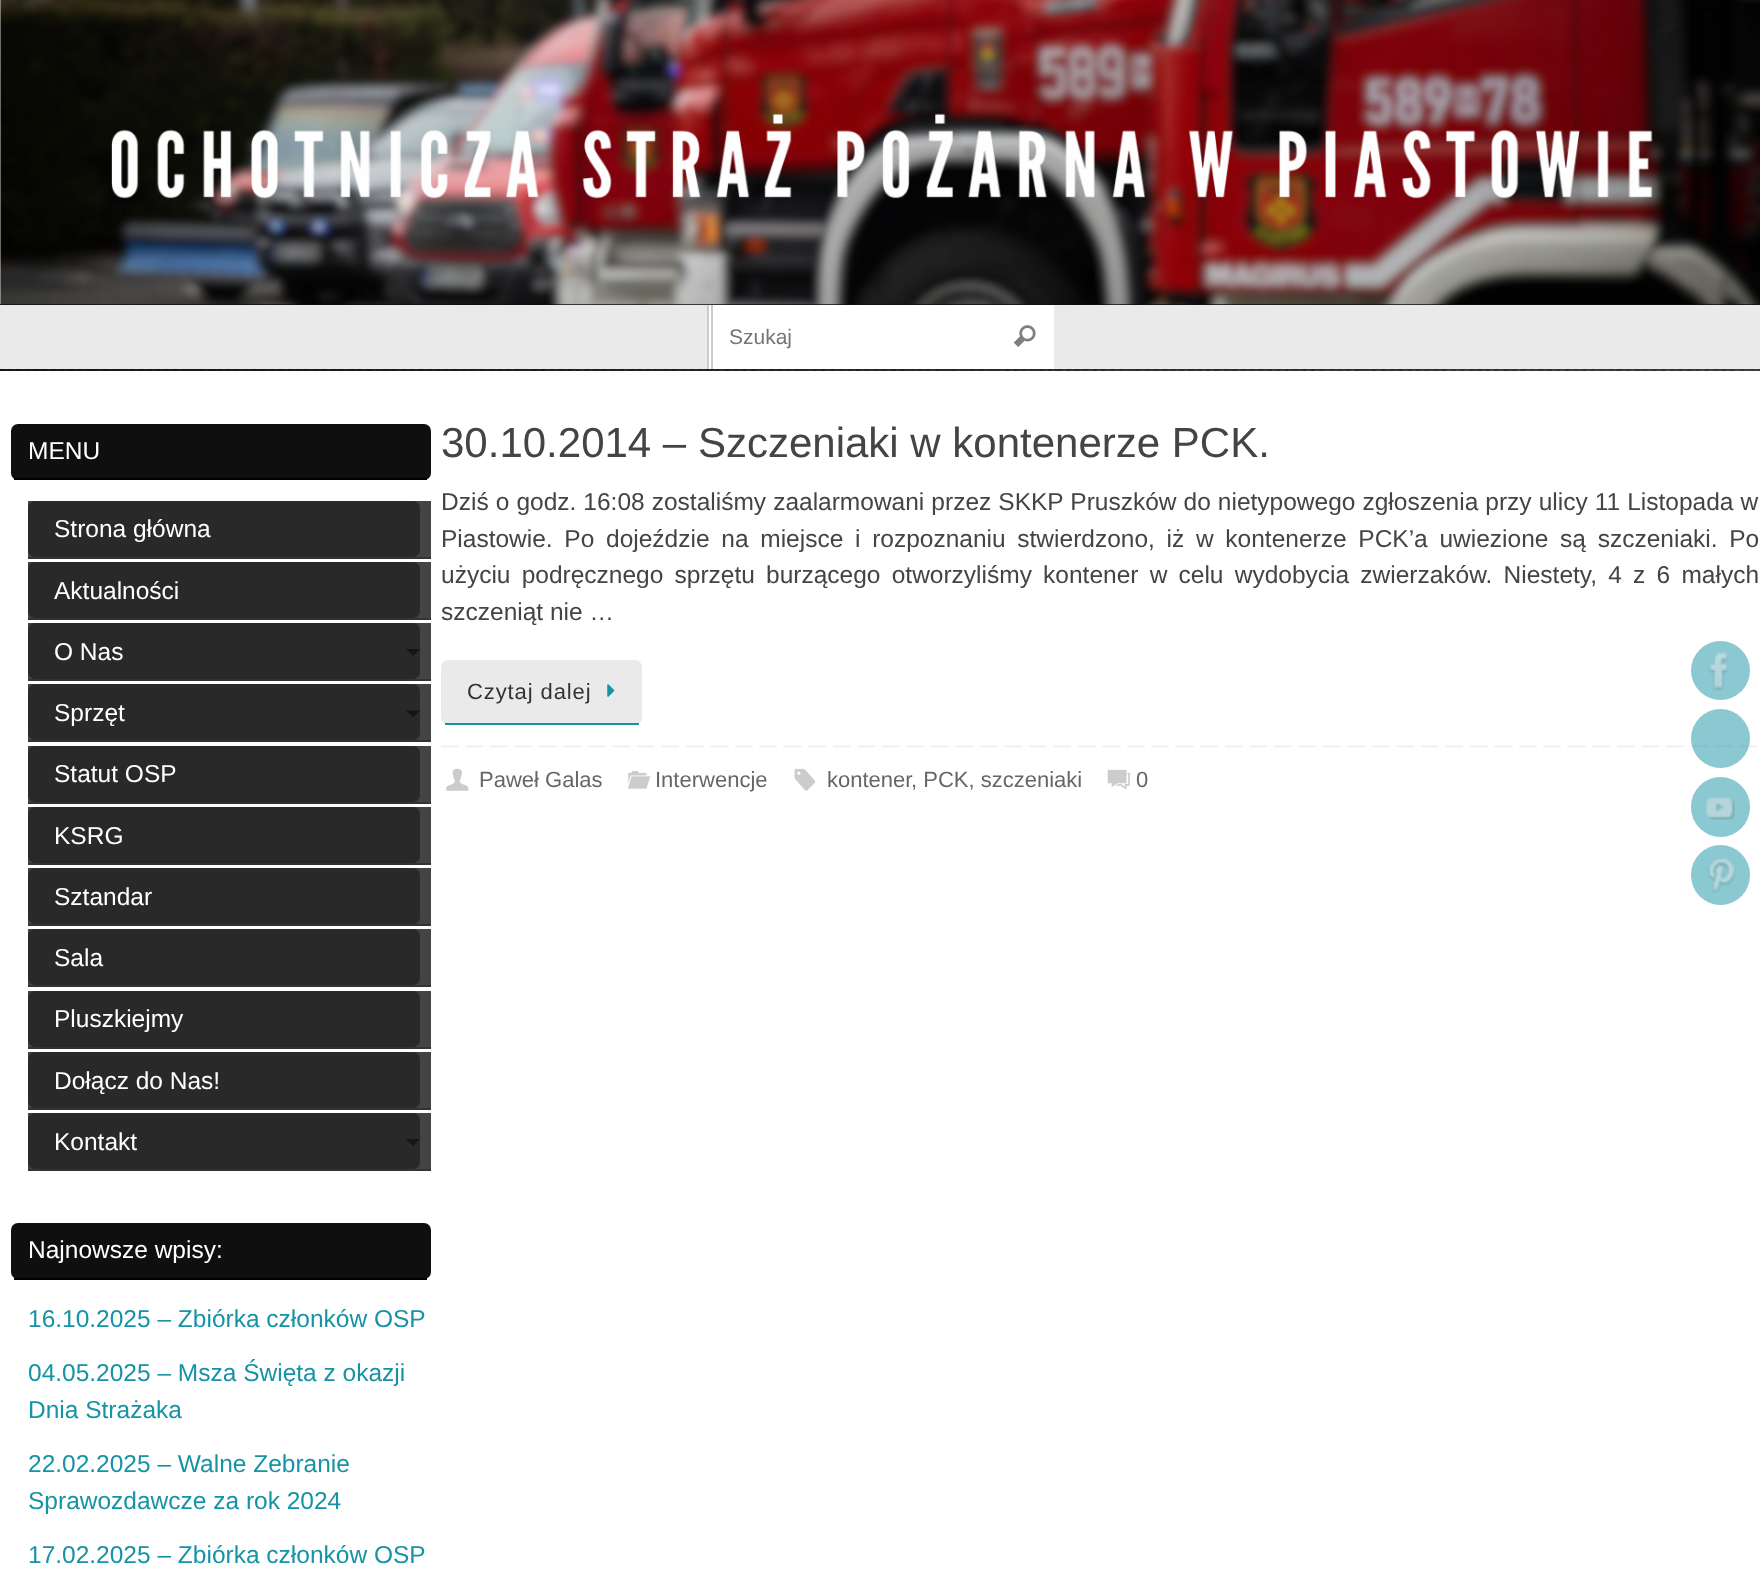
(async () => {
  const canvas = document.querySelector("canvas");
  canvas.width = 1760;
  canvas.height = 1580;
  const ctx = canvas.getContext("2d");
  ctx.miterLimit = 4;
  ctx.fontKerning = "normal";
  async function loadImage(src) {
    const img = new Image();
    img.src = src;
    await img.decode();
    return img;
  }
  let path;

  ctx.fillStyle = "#ffffff";
  ctx.fillRect(0, 0, 1760, 1580);
  ctx.drawImage(await loadImage("img/1.png"), 0, 369, 1760, 2);
  ctx.fillStyle = "#0f0f0f";
  ctx.fillRect(0, 304, 1760, 1);
  ctx.drawImage(await loadImage("img/2.png"), 0, 0, 1760, 305);
  for (const [x, y, w, h, color] of [
    [0, 305, 1760, 64, "#eaeaea"],
    [707, 305, 2, 64, "#cccccc"],
    [709, 305, 2, 64, "#ffffff"],
    [713, 305, 341, 64, "#ffffff"],
    [711, 305, 2, 64, "#cccccc"],
  ]) {
    ctx.fillStyle = color;
    ctx.fillRect(x, y, w, h);
  }
  ctx.drawImage(await loadImage("img/3.png"), 1013, 325, 23, 22);
  ctx.fillStyle = "#0f0f0f";
  ctx.beginPath();
  ctx.roundRect(11, 424, 420, 56, 7);
  ctx.fill();
  for (const [x, y, w, h, color] of [
    [14, 478, 413, 2, "#000000"],
    [28, 501, 403, 56, "#444444"],
    [28, 557, 403, 2, "#333333"],
  ]) {
    ctx.fillStyle = color;
    ctx.fillRect(x, y, w, h);
  }
  ctx.fillStyle = "#292929";
  ctx.beginPath();
  ctx.roundRect(28, 501, 392, 56, 7);
  ctx.fill();
  ctx.fillStyle = "#444444";
  ctx.fillRect(28, 562, 403, 56);
  ctx.fillStyle = "#333333";
  ctx.fillRect(28, 618, 403, 2);
  ctx.fillStyle = "#292929";
  ctx.beginPath();
  ctx.roundRect(28, 562, 392, 56, 7);
  ctx.fill();
  ctx.fillStyle = "#444444";
  ctx.fillRect(28, 623, 403, 56);
  ctx.fillStyle = "#333333";
  ctx.fillRect(28, 679, 403, 2);
  ctx.fillStyle = "#292929";
  ctx.beginPath();
  ctx.roundRect(28, 623, 392, 56, 7);
  ctx.fill();
  ctx.fillStyle = "#151515";
  path = new Path2D("M406 649H420L413 656Z");
  ctx.fill(path);
  ctx.fillStyle = "#444444";
  ctx.fillRect(28, 684, 403, 56);
  ctx.fillStyle = "#333333";
  ctx.fillRect(28, 740, 403, 2);
  ctx.fillStyle = "#292929";
  ctx.beginPath();
  ctx.roundRect(28, 684, 392, 56, 7);
  ctx.fill();
  ctx.fillStyle = "#151515";
  path = new Path2D("M406 710.5H420L413 717.5Z");
  ctx.fill(path);
  ctx.fillStyle = "#444444";
  ctx.fillRect(28, 746, 403, 56);
  ctx.fillStyle = "#333333";
  ctx.fillRect(28, 802, 403, 2);
  ctx.fillStyle = "#292929";
  ctx.beginPath();
  ctx.roundRect(28, 746, 392, 56, 7);
  ctx.fill();
  ctx.fillStyle = "#444444";
  ctx.fillRect(28, 807, 403, 56);
  ctx.fillStyle = "#333333";
  ctx.fillRect(28, 863, 403, 2);
  ctx.fillStyle = "#292929";
  ctx.beginPath();
  ctx.roundRect(28, 807, 392, 56, 7);
  ctx.fill();
  ctx.fillStyle = "#444444";
  ctx.fillRect(28, 868, 403, 56);
  ctx.fillStyle = "#333333";
  ctx.fillRect(28, 924, 403, 2);
  ctx.fillStyle = "#292929";
  ctx.beginPath();
  ctx.roundRect(28, 868, 392, 56, 7);
  ctx.fill();
  ctx.fillStyle = "#444444";
  ctx.fillRect(28, 929, 403, 56);
  ctx.fillStyle = "#333333";
  ctx.fillRect(28, 985, 403, 2);
  ctx.fillStyle = "#292929";
  ctx.beginPath();
  ctx.roundRect(28, 929, 392, 56, 7);
  ctx.fill();
  ctx.fillStyle = "#444444";
  ctx.fillRect(28, 991, 403, 56);
  ctx.fillStyle = "#333333";
  ctx.fillRect(28, 1047, 403, 2);
  ctx.fillStyle = "#292929";
  ctx.beginPath();
  ctx.roundRect(28, 991, 392, 56, 7);
  ctx.fill();
  ctx.fillStyle = "#444444";
  ctx.fillRect(28, 1052, 403, 56);
  ctx.fillStyle = "#333333";
  ctx.fillRect(28, 1108, 403, 2);
  ctx.fillStyle = "#292929";
  ctx.beginPath();
  ctx.roundRect(28, 1052, 392, 56, 7);
  ctx.fill();
  ctx.fillStyle = "#444444";
  ctx.fillRect(28, 1113, 403, 56);
  ctx.fillStyle = "#333333";
  ctx.fillRect(28, 1169, 403, 2);
  ctx.fillStyle = "#292929";
  ctx.beginPath();
  ctx.roundRect(28, 1113, 392, 56, 7);
  ctx.fill();
  ctx.fillStyle = "#151515";
  path = new Path2D("M406 1139H420L413 1146Z");
  ctx.fill(path);
  ctx.fillStyle = "#0f0f0f";
  ctx.beginPath();
  ctx.roundRect(11, 1223, 420, 56, 7);
  ctx.fill();
  ctx.fillStyle = "#000000";
  ctx.fillRect(14, 1278, 413, 2);
  ctx.fillStyle = "#eaeaea";
  ctx.beginPath();
  ctx.roundRect(441, 660, 201, 65, 7);
  ctx.fill();
  ctx.fillStyle = "#1693a5";
  ctx.fillRect(445, 723, 194, 2);
  ctx.drawImage(await loadImage("img/4.png"), 607, 684, 8, 13);
  ctx.drawImage(await loadImage("img/5.png"), 441, 745, 1316, 3);
  ctx.drawImage(await loadImage("img/6.png"), 446, 768, 23, 23);
  ctx.drawImage(await loadImage("img/7.png"), 628, 770, 23, 19);
  ctx.drawImage(await loadImage("img/8.png"), 794, 768, 22, 23);
  ctx.drawImage(await loadImage("img/9.png"), 1107, 769, 23, 21);
  ctx.fillStyle = "#8bc9d2";
  ctx.beginPath();
  ctx.arc(1720.5, 670.5, 29.5, 0, Math.PI * 2);
  ctx.fill();
  ctx.drawImage(await loadImage("img/10.png"), 1708, 652, 20, 39);
  ctx.fillStyle = "rgba(22, 147, 165, 0.5)";
  ctx.beginPath();
  ctx.arc(1720.5, 738.5, 29.5, 0, Math.PI * 2);
  ctx.fill();
  ctx.fillStyle = "#8bc9d2";
  ctx.beginPath();
  ctx.roundRect(1691, 777, 59, 60, 29.5);
  ctx.fill();
  ctx.drawImage(await loadImage("img/11.png"), 1705, 797, 30, 23);
  ctx.beginPath();
  ctx.roundRect(1691, 845, 59, 60, 29.5);
  ctx.fill();
  ctx.drawImage(await loadImage("img/12.png"), 1708, 858, 28, 35);
  ctx.font = "21px Liberation Sans";
  ctx.fillStyle = "#757575";
  ctx.fillText("Szukaj", 729, 344);
  ctx.font = "24.5px Liberation Sans";
  ctx.fillStyle = "#ffffff";
  for (const [text, x, y] of [
    ["MENU", 28, 459],
    ["Strona główna", 54, 537],
    ["Aktualności", 54, 599],
    ["O Nas", 54, 660],
    ["Sprzęt", 54, 721],
    ["Statut OSP", 54, 782],
    ["KSRG", 54, 844],
    ["Sztandar", 54, 905],
    ["Sala", 54, 966],
    ["Pluszkiejmy", 54, 1027],
    ["Dołącz do Nas!", 54, 1089],
    ["Kontakt", 54, 1150],
    ["Najnowsze wpisy:", 28, 1258],
  ]) {
    ctx.fillText(text, x, y);
  }
  ctx.fillStyle = "#1693a5";
  for (const [text, x, y] of [
    ["16.10.2025 – Zbiórka członków OSP", 28, 1327],
    ["04.05.2025 – Msza Święta z okazji", 28, 1381],
    ["Dnia Strażaka", 28, 1418],
    ["22.02.2025 – Walne Zebranie", 28, 1472],
    ["Sprawozdawcze za rok 2024", 28, 1509],
    ["17.02.2025 – Zbiórka członków OSP", 28, 1563],
  ]) {
    ctx.fillText(text, x, y);
  }
  ctx.font = "42px Liberation Sans";
  ctx.fillStyle = "#444444";
  ctx.fillText("30.10.2014 – Szczeniaki w kontenerze PCK.", 441, 457);
  ctx.wordSpacing = "0.25px";
  ctx.font = "24.5px Liberation Sans";
  ctx.fillText("Dziś o godz. 16:08 zostaliśmy zaalarmowani przez SKKP Pruszków do nietypowego zgłoszenia przy ulicy 11 Listopada w", 441, 510);
  ctx.wordSpacing = "4.9px";
  ctx.fillText("Piastowie. Po dojeździe na miejsce i rozpoznaniu stwierdzono, iż w kontenerze PCK’a uwiezione są szczeniaki. Po", 441, 547);
  ctx.wordSpacing = "4.4px";
  ctx.fillText("użyciu podręcznego sprzętu burzącego otworzyliśmy kontener w celu wydobycia zwierzaków. Niestety, 4 z 6 małych", 441, 583);
  ctx.wordSpacing = "0px";
  ctx.fillText("szczeniąt nie …", 441, 620);
  ctx.letterSpacing = "0.9px";
  ctx.font = "22px Liberation Sans";
  ctx.fillStyle = "#333333";
  ctx.fillText("Czytaj dalej", 467, 699);
  ctx.letterSpacing = "0px";
  ctx.fillStyle = "#666666";
  for (const [text, x, y] of [
    ["Paweł Galas", 479, 787],
    ["Interwencje", 655, 787],
    ["kontener", 827, 787],
    [", PCK, szczeniaki", 911, 787],
    ["0", 1136, 787],
  ]) {
    ctx.fillText(text, x, y);
  }
})();
